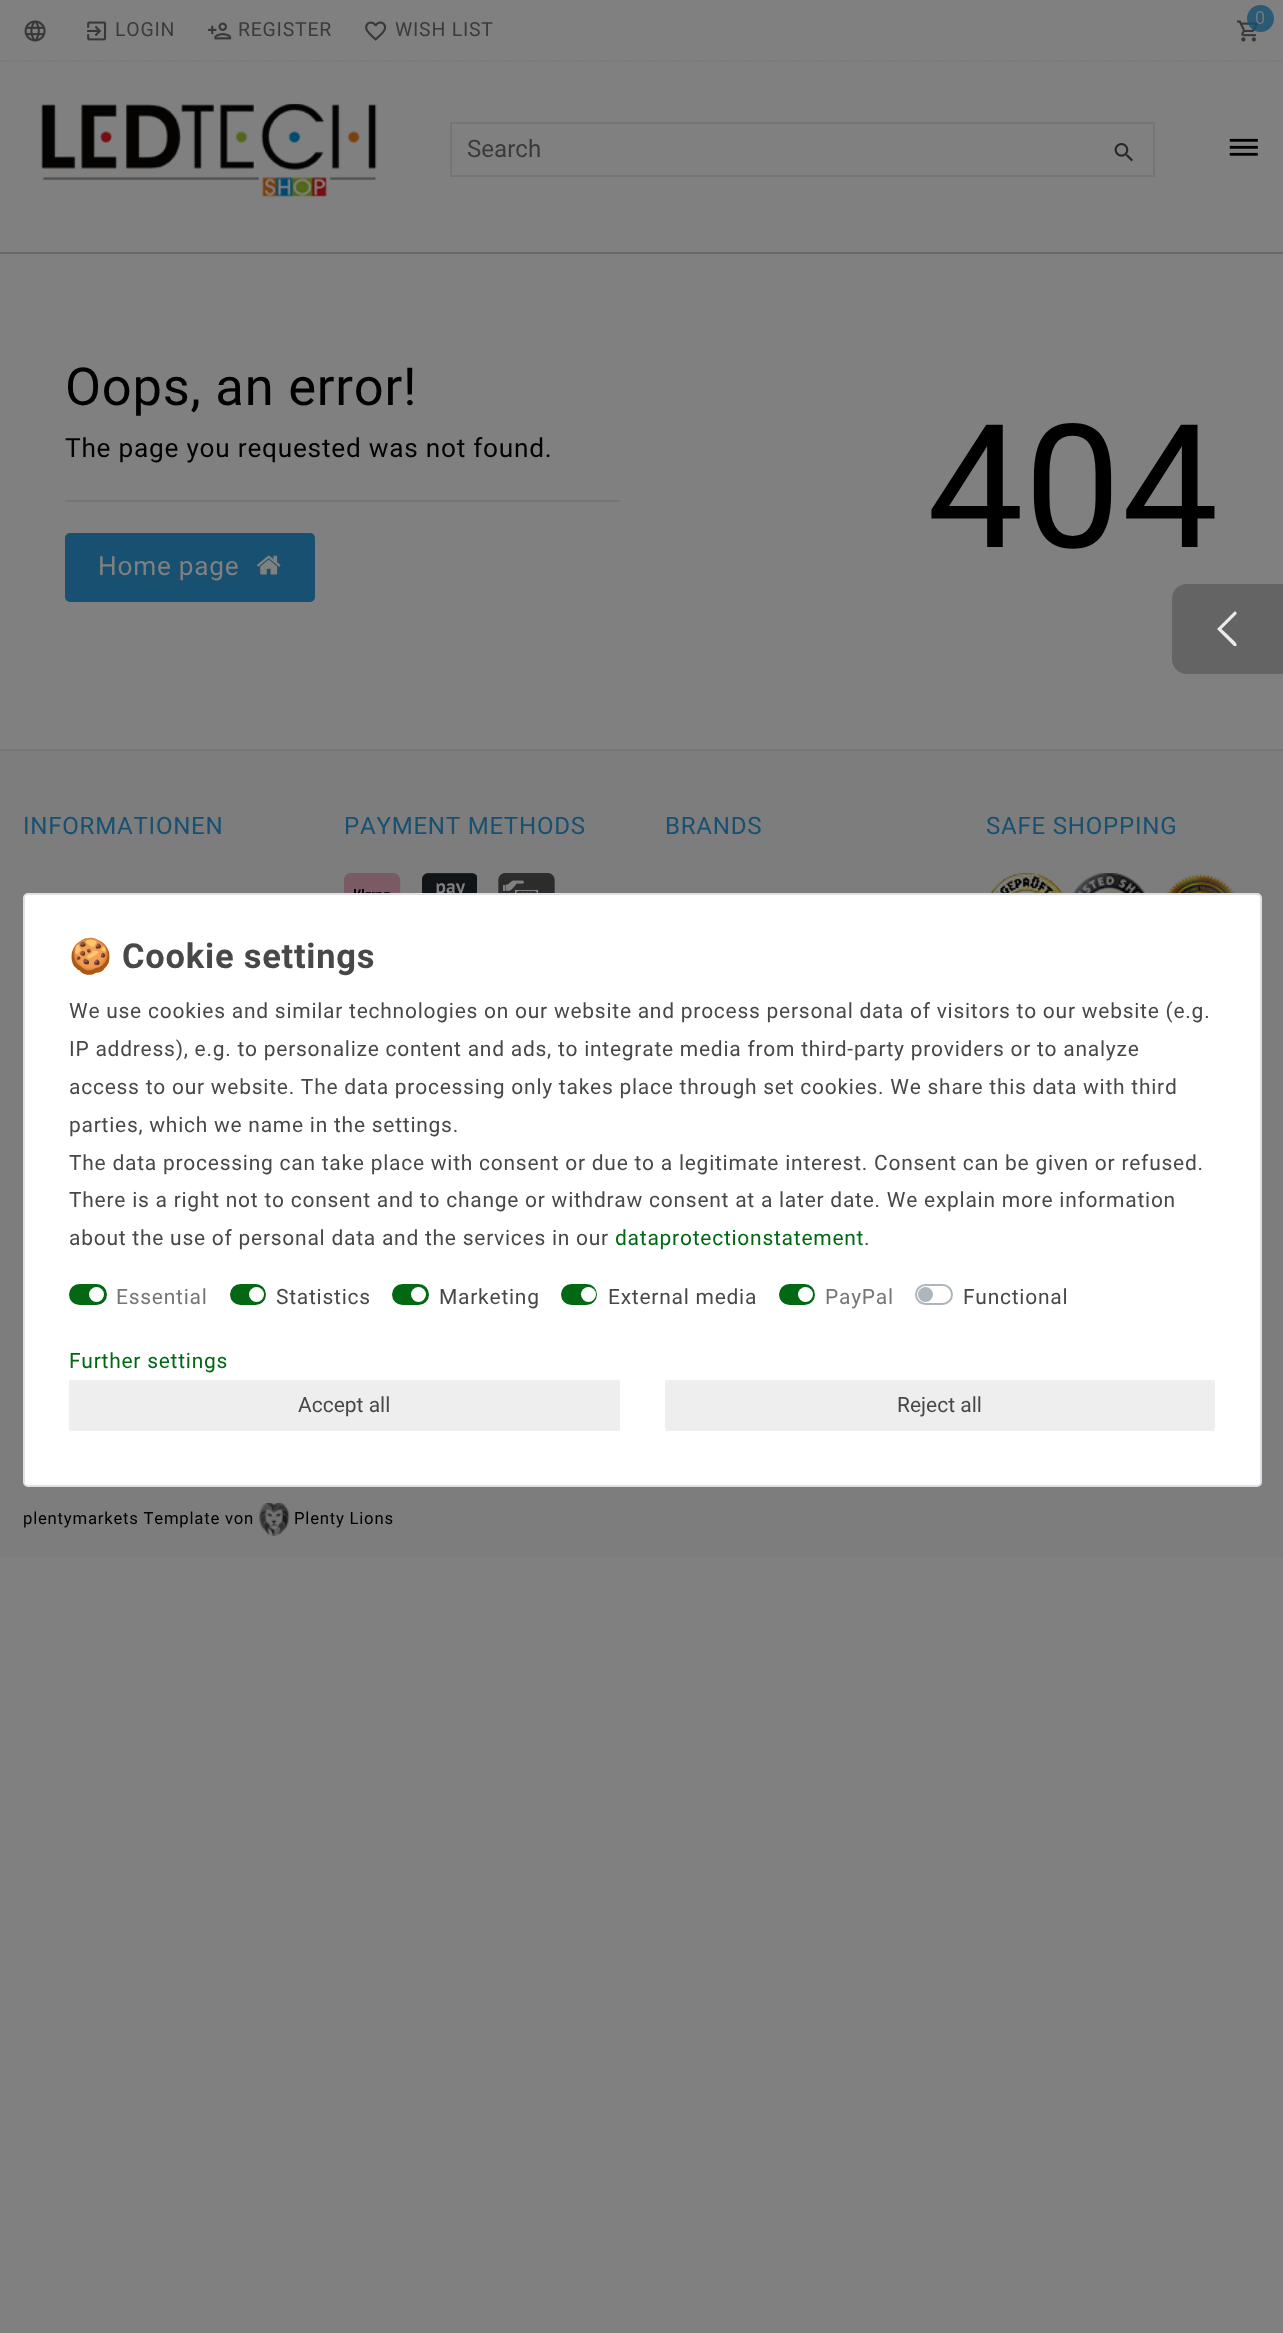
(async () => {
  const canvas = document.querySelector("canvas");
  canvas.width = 1283;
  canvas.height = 2333;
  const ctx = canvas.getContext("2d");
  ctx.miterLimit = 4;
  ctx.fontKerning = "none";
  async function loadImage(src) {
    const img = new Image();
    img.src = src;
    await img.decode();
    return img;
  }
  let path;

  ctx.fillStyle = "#808080";
  ctx.fillRect(0, 0, 1283, 2333);
  path = new Path2D("M0 61H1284");
  ctx.strokeStyle = "#757575";
  ctx.lineWidth = 1.5;
  ctx.setLineDash([1.5, 1.5]);
  ctx.stroke(path);
  ctx.drawImage(await loadImage("img/1.png"), 1237, 20, 21, 22);
  ctx.fillStyle = "rgba(23, 80, 112, 0.8)";
  ctx.beginPath();
  ctx.arc(1260.5, 18.5, 13.5, 0, Math.PI * 2);
  ctx.fill();
  ctx.drawImage(await loadImage("img/2.png"), 24, 20, 22, 22);
  ctx.drawImage(await loadImage("img/3.png"), 87, 21, 20, 20);
  ctx.drawImage(await loadImage("img/4.png"), 208, 22, 24, 18);
  ctx.drawImage(await loadImage("img/5.png"), 365, 21, 22, 20);
  ctx.fillStyle = "#686868";
  ctx.fillRect(0, 252, 1283, 2);
  ctx.drawImage(await loadImage("img/6.png"), 41, 103, 336, 95);
  ctx.lineWidth = 2;
  ctx.setLineDash([]);
  ctx.strokeRect(451, 123, 703, 53);
  ctx.drawImage(await loadImage("img/7.png"), 1114, 143, 19, 19);
  ctx.drawImage(await loadImage("img/8.png"), 1229, 138, 29, 18);
  ctx.fillStyle = "#757575";
  ctx.fillRect(65, 500, 555, 2);
  ctx.fillStyle = "#175070";
  ctx.beginPath();
  ctx.roundRect(66, 534, 248, 67, 4);
  ctx.fill();
  ctx.strokeStyle = "#175070";
  ctx.stroke();
  ctx.drawImage(await loadImage("img/9.png"), 256, 555, 25, 20);
  ctx.fillStyle = "#757575";
  ctx.fillRect(0, 749, 1283, 2);
  ctx.fillStyle = "#7d7d7d";
  ctx.fillRect(0, 751, 1283, 806);
  ctx.drawImage(await loadImage("img/10.png"), 344, 873, 57, 20);
  ctx.drawImage(await loadImage("img/11.png"), 422, 873, 55, 20);
  ctx.drawImage(await loadImage("img/12.png"), 498, 873, 57, 20);
  ctx.drawImage(await loadImage("img/13.png"), 991, 873, 72, 20);
  ctx.drawImage(await loadImage("img/14.png"), 1072, 873, 163, 20);
  ctx.fillStyle = "#ffffff";
  ctx.beginPath();
  ctx.roundRect(24, 894, 1237, 592, 4);
  ctx.fill();
  ctx.strokeStyle = "#dee2e6";
  ctx.stroke();
  ctx.fillStyle = "#026814";
  ctx.beginPath();
  ctx.roundRect(70, 1285, 36, 19, 9.5);
  ctx.fill();
  ctx.strokeStyle = "#026814";
  ctx.stroke();
  ctx.fillStyle = "#ffffff";
  ctx.beginPath();
  ctx.arc(96.5, 1294.5, 7.5, 0, Math.PI * 2);
  ctx.fill();
  ctx.fillStyle = "#026814";
  ctx.beginPath();
  ctx.roundRect(231, 1285, 34, 19, 9.5);
  ctx.fill();
  ctx.stroke();
  ctx.fillStyle = "#ffffff";
  ctx.beginPath();
  ctx.arc(256.5, 1294.5, 7.5, 0, Math.PI * 2);
  ctx.fill();
  ctx.fillStyle = "#026814";
  ctx.beginPath();
  ctx.roundRect(393, 1285, 35, 19, 9.5);
  ctx.fill();
  ctx.stroke();
  ctx.fillStyle = "#ffffff";
  ctx.beginPath();
  ctx.arc(418.5, 1294.5, 7.5, 0, Math.PI * 2);
  ctx.fill();
  ctx.fillStyle = "#026814";
  ctx.beginPath();
  ctx.roundRect(562, 1285, 34, 19, 9.5);
  ctx.fill();
  ctx.stroke();
  ctx.fillStyle = "#ffffff";
  ctx.beginPath();
  ctx.arc(588.5, 1294.5, 7.5, 0, Math.PI * 2);
  ctx.fill();
  ctx.fillStyle = "#026814";
  ctx.beginPath();
  ctx.roundRect(780, 1285, 34, 19, 9.5);
  ctx.fill();
  ctx.stroke();
  ctx.fillStyle = "#ffffff";
  ctx.beginPath();
  ctx.arc(805.5, 1294.5, 7.5, 0, Math.PI * 2);
  ctx.fill();
  ctx.beginPath();
  ctx.roundRect(916, 1285, 36, 19, 9.5);
  ctx.strokeStyle = "#adb5bd";
  ctx.stroke();
  ctx.fillStyle = "#adb5bd";
  ctx.beginPath();
  ctx.arc(925.5, 1294.5, 7.5, 0, Math.PI * 2);
  ctx.fill();
  ctx.fillStyle = "#eeeeee";
  ctx.beginPath();
  ctx.roundRect(70, 1381, 549, 49, 1);
  ctx.fill();
  ctx.strokeStyle = "#eeeeee";
  ctx.stroke();
  ctx.beginPath();
  ctx.roundRect(666, 1381, 548, 49, 1);
  ctx.fill();
  ctx.stroke();
  ctx.drawImage(await loadImage("img/15.png"), 259, 1503, 31, 33);
  ctx.fillStyle = "#646464";
  path = new Path2D("M1187 584H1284V674H1187C1178.5 674 1172 667.5 1172 659V599C1172 590.5 1178.5 584 1187 584Z");
  ctx.fill(path);
  ctx.fillStyle = "#ebebeb";
  path = new Path2D("M1234 646L1217 629L1230 616L1234.5 611.5H1235.5C1236.5 612 1236.5 613 1236.5 614L1221.5 629C1222 629.5 1236.5 642.5 1236.5 644V645.5C1236 646.5 1235 646 1234 646Z");
  ctx.fill(path);
  ctx.letterSpacing = "0.75px";
  ctx.font = "18px Roboto";
  ctx.fillStyle = "#6f787d";
  ctx.fillText("0", 1255, 24);
  ctx.font = "19.5px Roboto";
  ctx.fillStyle = "#3b3b3b";
  for (const [text, x, y] of [
    ["LOGIN", 115, 36],
    ["REGISTER", 238, 36],
    ["WISH LIST", 395, 36],
  ]) {
    ctx.fillText(text, x, y);
  }
  ctx.letterSpacing = "0px";
  ctx.font = "24.1px Roboto";
  ctx.fillText("Search", 467, 157);
  ctx.letterSpacing = "0.75px";
  ctx.font = "52.5px Roboto";
  ctx.fillStyle = "#000000";
  ctx.fillText("Oops, an error!", 65, 405);
  ctx.font = "26.25px Roboto";
  ctx.fillText("The page you requested was not found.", 65, 457);
  ctx.fillStyle = "#808080";
  ctx.fillText("Home page", 98, 575);
  ctx.font = "172px Roboto";
  ctx.fillStyle = "#000000";
  ctx.fillText("404", 927, 547);
  ctx.font = "24.1px Roboto";
  ctx.fillStyle = "#175070";
  for (const [text, x, y] of [
    ["INFORMATIONEN", 23, 834],
    ["PAYMENT METHODS", 344, 834],
    ["BRANDS", 665, 834],
    ["SAFE SHOPPING", 986, 834],
  ]) {
    ctx.fillText(text, x, y);
  }
  ctx.font = "bold 34.5px Noto Color Emoji";
  ctx.fillStyle = "#484848";
  ctx.fillText("🍪", 69, 968);
  ctx.font = "bold 34.5px Roboto";
  ctx.fillText("Cookie settings", 122, 968);
  ctx.font = "21px Roboto";
  for (const [text, x, y] of [
    ["We use cookies and similar technologies on our website and process personal data of visitors to our website (e.g.", 69, 1018],
    ["IP address), e.g. to personalize content and ads, to integrate media from third-party providers or to analyze", 69, 1056],
    ["access to our website. The data processing only takes place through set cookies. We share this data with third", 69, 1094],
    ["parties, which we name in the settings.", 69, 1132],
    ["The data processing can take place with consent or due to a legitimate interest. Consent can be given or refused.", 69, 1170],
    ["There is a right not to consent and to change or withdraw consent at a later date. We explain more information", 69, 1207],
    ["about the use of personal data and the services in our", 69, 1245],
  ]) {
    ctx.fillText(text, x, y);
  }
  ctx.fillStyle = "#026814";
  ctx.fillText("dataprotectionstatement", 615, 1245);
  ctx.fillStyle = "#484848";
  ctx.fillText(".", 864, 1245);
  ctx.fillStyle = "#767676";
  ctx.fillText("Essential", 116, 1304);
  ctx.fillStyle = "#484848";
  for (const [text, x, y] of [
    ["Statistics", 276, 1304],
    ["Marketing", 439, 1304],
    ["External media", 608, 1304],
  ]) {
    ctx.fillText(text, x, y);
  }
  ctx.fillStyle = "#767676";
  ctx.fillText("PayPal", 825, 1304);
  ctx.fillStyle = "#484848";
  ctx.fillText("Functional", 963, 1304);
  ctx.fillStyle = "#026814";
  ctx.fillText("Further settings", 69, 1368);
  ctx.letterSpacing = "0px";
  ctx.fillStyle = "#484848";
  ctx.fillText("Accept all", 298, 1412);
  ctx.fillText("Reject all", 897, 1412);
  ctx.letterSpacing = "0.75px";
  ctx.font = "16.75px Roboto";
  ctx.fillStyle = "#000000";
  ctx.fillText("plentymarkets Template von", 23, 1524);
  ctx.fillText("Plenty Lions", 294, 1524);
})();
